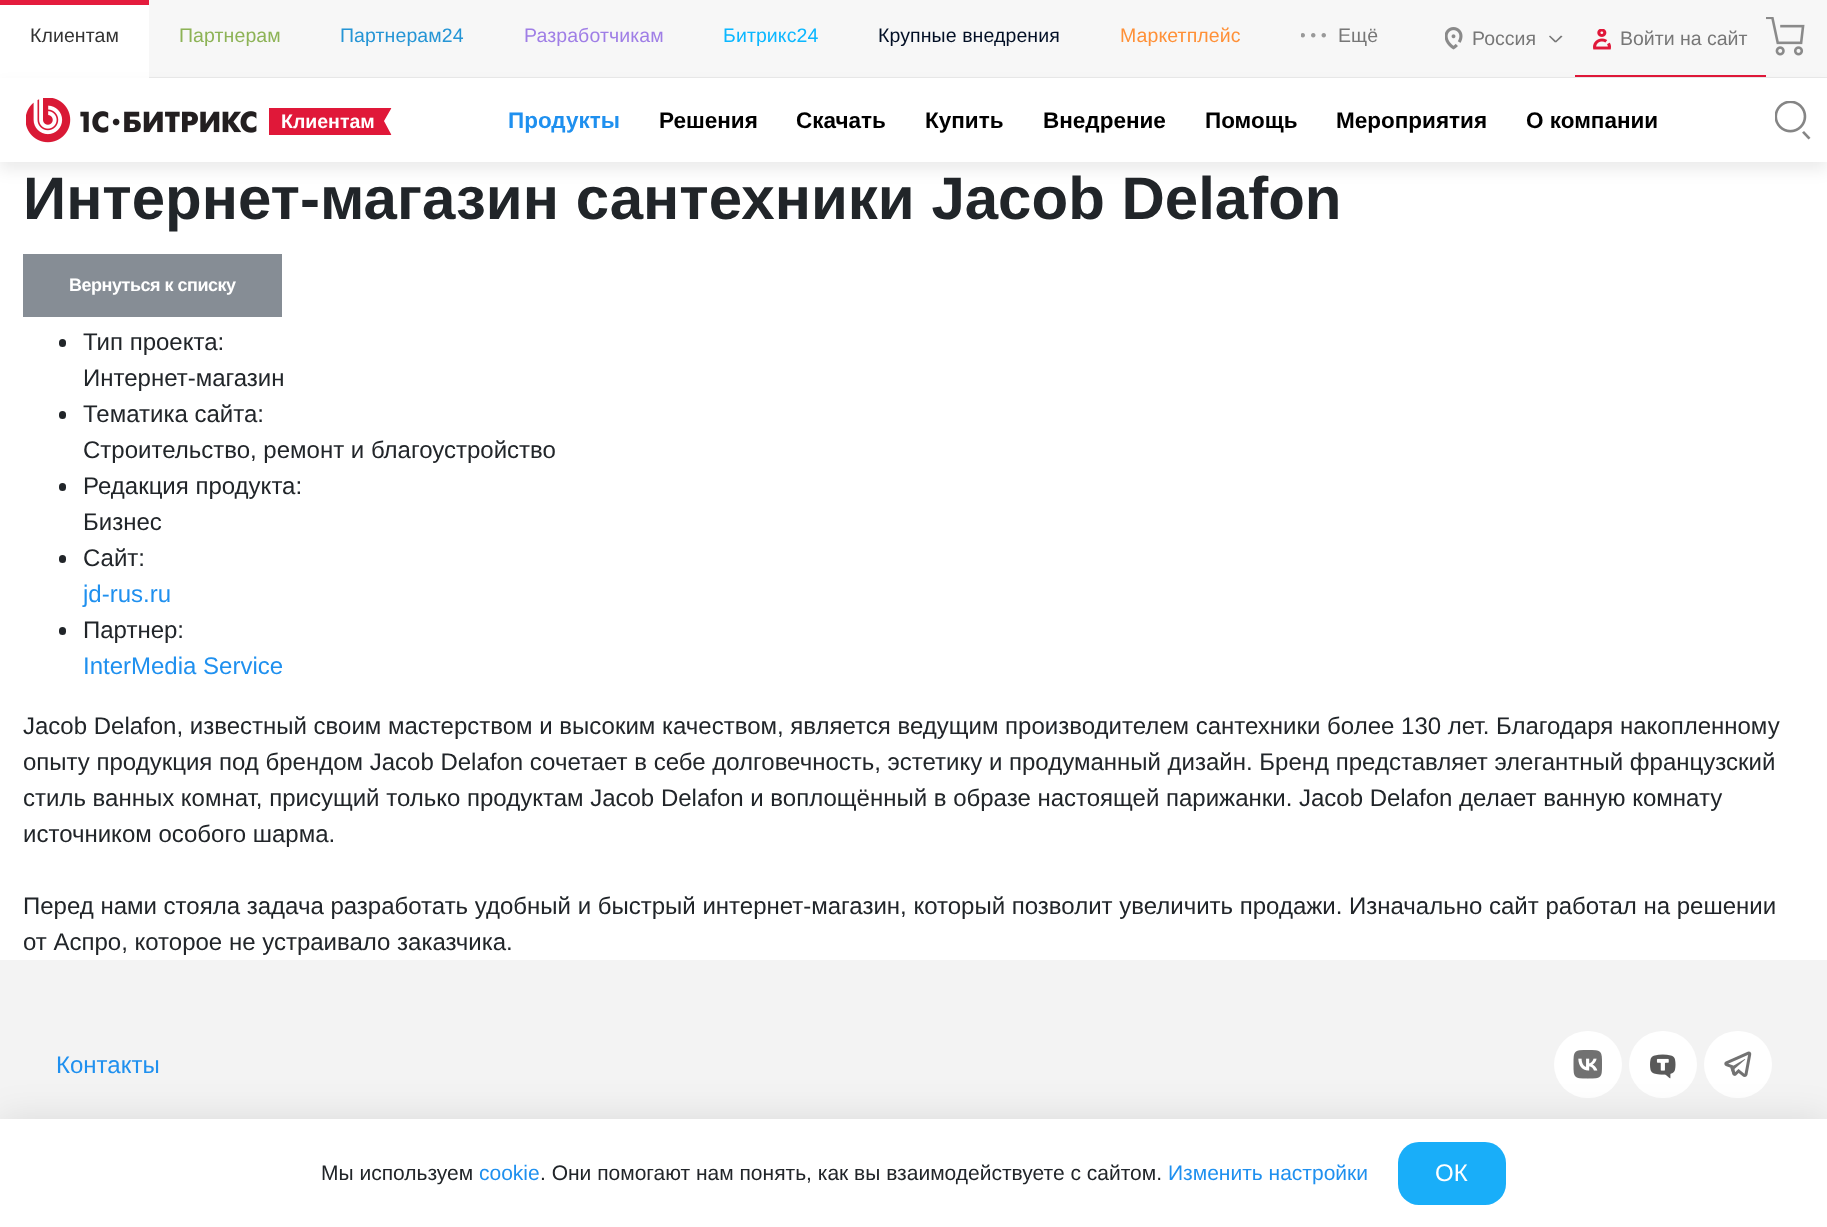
(async () => {
  const canvas = document.querySelector("canvas");
  canvas.width = 1827;
  canvas.height = 1227;
  const ctx = canvas.getContext("2d");
  ctx.miterLimit = 4;
  ctx.fontKerning = "normal";
  async function loadImage(src) {
    const img = new Image();
    img.src = src;
    await img.decode();
    return img;
  }
  let path;

  ctx.fillStyle = "#ffffff";
  ctx.fillRect(0, 0, 1827, 1227);
  for (const [x, y, w, h, color] of [
    [149, 0, 1678, 77, "#f7f7f7"],
    [149, 77, 1678, 1, "#e9e9e9"],
    [0, 0, 149, 5, "#e41c3d"],
  ]) {
    ctx.fillStyle = color;
    ctx.fillRect(x, y, w, h);
  }
  ctx.drawImage(await loadImage("img/1.png"), 1301, 33, 25, 5);
  ctx.drawImage(await loadImage("img/2.png"), 1445, 27, 18, 23);
  ctx.fillStyle = "#777777";
  path = new Path2D("M1550 35.5L1556.5 41.5L1555 42.5L1549 36.5Z");
  ctx.fill(path);
  path = new Path2D("M1555 41.5L1561 35.5L1562.5 36.5L1556 42.5Z");
  ctx.fill(path);
  ctx.fillStyle = "#e01839";
  ctx.fillRect(1575, 75, 191, 2);
  ctx.drawImage(await loadImage("img/3.png"), 1593, 29, 18, 21);
  ctx.drawImage(await loadImage("img/4.png"), 1766, 17, 39, 39);
  ctx.fillStyle = "rgba(0, 0, 0, 0.08)";
  ctx.filter = "blur(7.5px)";
  ctx.beginPath();
  ctx.rect(0, 86, 1827, 84);
  ctx.fill();
  ctx.filter = "none";
  ctx.fillStyle = "#ffffff";
  ctx.fillRect(0, 78, 1827, 84);
  ctx.drawImage(await loadImage("img/5.png"), 26, 98, 231, 45);
  ctx.drawImage(await loadImage("img/6.png"), 269, 108, 123, 27);
  ctx.drawImage(await loadImage("img/7.png"), 1775, 101, 36, 39);
  ctx.fillStyle = "#868d95";
  ctx.fillRect(23, 254, 259, 63);
  ctx.fillStyle = "#212529";
  ctx.beginPath();
  ctx.roundRect(59, 339, 7, 8, 3.5);
  ctx.fill();
  ctx.beginPath();
  ctx.roundRect(59, 411, 7, 8, 3.5);
  ctx.fill();
  ctx.beginPath();
  ctx.roundRect(59, 483, 7, 8, 3.5);
  ctx.fill();
  ctx.beginPath();
  ctx.roundRect(59, 555, 7, 8, 3.5);
  ctx.fill();
  ctx.beginPath();
  ctx.roundRect(59, 627, 7, 8, 3.5);
  ctx.fill();
  ctx.fillStyle = "#f3f3f3";
  ctx.fillRect(0, 960, 1827, 159);
  ctx.fillStyle = "#ffffff";
  ctx.beginPath();
  ctx.roundRect(1554, 1031, 68, 67, 33.5);
  ctx.fill();
  ctx.drawImage(await loadImage("img/8.png"), 1573, 1050, 29, 29);
  ctx.beginPath();
  ctx.roundRect(1629, 1031, 68, 67, 33.5);
  ctx.fill();
  ctx.drawImage(await loadImage("img/9.png"), 1650, 1054, 26, 25);
  ctx.beginPath();
  ctx.roundRect(1704, 1031, 68, 67, 33.5);
  ctx.fill();
  ctx.drawImage(await loadImage("img/10.png"), 1724, 1051, 28, 26);
  ctx.fillStyle = "rgba(0, 0, 0, 0.1)";
  ctx.filter = "blur(18px)";
  ctx.beginPath();
  ctx.rect(0, 1119, 1827, 108);
  ctx.fill();
  ctx.filter = "none";
  ctx.fillStyle = "#ffffff";
  ctx.fillRect(0, 1119, 1827, 108);
  ctx.fillStyle = "#19aef9";
  ctx.beginPath();
  ctx.roundRect(1398, 1142, 108, 63, 21);
  ctx.fill();
  ctx.letterSpacing = "0.1px";
  ctx.font = "19.5px Liberation Sans";
  ctx.fillStyle = "#333333";
  ctx.fillText("Клиентам", 30, 42);
  ctx.fillStyle = "#8db356";
  ctx.fillText("Партнерам", 179, 42);
  ctx.fillStyle = "#2595d5";
  ctx.fillText("Партнерам24", 340, 42);
  ctx.fillStyle = "#9f7ee6";
  ctx.fillText("Разработчикам", 524, 42);
  ctx.fillStyle = "#0bb7ff";
  ctx.fillText("Битрикс24", 723, 42);
  ctx.fillStyle = "#020f25";
  ctx.fillText("Крупные внедрения", 878, 42);
  ctx.fillStyle = "#ff9037";
  ctx.fillText("Маркетплейс", 1120, 42);
  ctx.fillStyle = "#777777";
  ctx.fillText("Ещё", 1338, 42);
  ctx.letterSpacing = "0px";
  ctx.fillText("Россия", 1472, 45);
  ctx.fillText("Войти на сайт", 1620, 45);
  ctx.font = "bold 19.5px Liberation Sans";
  ctx.fillStyle = "#ffffff";
  ctx.fillText("Клиентам", 281, 128);
  ctx.font = "bold 22.5px Liberation Sans";
  ctx.fillStyle = "#1f90ef";
  ctx.fillText("Продукты", 508, 128);
  ctx.fillStyle = "#000000";
  for (const [text, x, y] of [
    ["Решения", 659, 128],
    ["Скачать", 796, 128],
    ["Купить", 925, 128],
    ["Внедрение", 1043, 128],
    ["Помощь", 1205, 128],
    ["Мероприятия", 1336, 128],
    ["О компании", 1526, 128],
  ]) {
    ctx.fillText(text, x, y);
  }
  ctx.font = "bold 60px Liberation Sans";
  ctx.fillStyle = "#212529";
  ctx.fillText("Интернет-магазин сантехники Jacob Delafon", 23, 219);
  ctx.letterSpacing = "-0.5px";
  ctx.font = "bold 18px Liberation Sans";
  ctx.fillStyle = "#ffffff";
  ctx.fillText("Вернуться к списку", 69, 291);
  ctx.letterSpacing = "0px";
  ctx.font = "24px Liberation Sans";
  ctx.fillStyle = "#212529";
  for (const [text, x, y] of [
    ["Тип проекта:", 83, 350],
    ["Интернет-магазин", 83, 386],
    ["Тематика сайта:", 83, 422],
    ["Строительство, ремонт и благоустройство", 83, 458],
    ["Редакция продукта:", 83, 494],
    ["Бизнес", 83, 530],
    ["Сайт:", 83, 566],
  ]) {
    ctx.fillText(text, x, y);
  }
  ctx.fillStyle = "#1f90ef";
  ctx.fillText("jd-rus.ru", 83, 602);
  ctx.fillStyle = "#212529";
  ctx.fillText("Партнер:", 83, 638);
  ctx.fillStyle = "#1f90ef";
  ctx.fillText("InterMedia Service", 83, 674);
  ctx.fillStyle = "#212529";
  for (const [text, x, y] of [
    ["Jacob Delafon, известный своим мастерством и высоким качеством, является ведущим производителем сантехники более 130 лет. Благодаря накопленному", 23, 734],
    ["опыту продукция под брендом Jacob Delafon сочетает в себе долговечность, эстетику и продуманный дизайн. Бренд представляет элегантный французский", 23, 770],
    ["стиль ванных комнат, присущий только продуктам Jacob Delafon и воплощённый в образе настоящей парижанки. Jacob Delafon делает ванную комнату", 23, 806],
    ["источником особого шарма.", 23, 842],
    ["Перед нами стояла задача разработать удобный и быстрый интернет-магазин, который позволит увеличить продажи. Изначально сайт работал на решении", 23, 914],
    ["от Аспро, которое не устраивало заказчика.", 23, 950],
  ]) {
    ctx.fillText(text, x, y);
  }
  ctx.fillStyle = "#1f90ef";
  ctx.fillText("Контакты", 56, 1073);
  ctx.font = "21px Liberation Sans";
  ctx.fillStyle = "#212529";
  ctx.fillText("Мы используем", 321, 1180);
  ctx.fillStyle = "#1f90ef";
  ctx.fillText("cookie", 479, 1180);
  ctx.fillStyle = "#212529";
  ctx.fillText(". Они помогают нам понять, как вы взаимодействуете с сайтом.", 540, 1180);
  ctx.fillStyle = "#1f90ef";
  ctx.fillText("Изменить настройки", 1168, 1180);
  ctx.font = "24px Liberation Sans";
  ctx.fillStyle = "#ffffff";
  ctx.fillText("ОК", 1435, 1181);
})();
